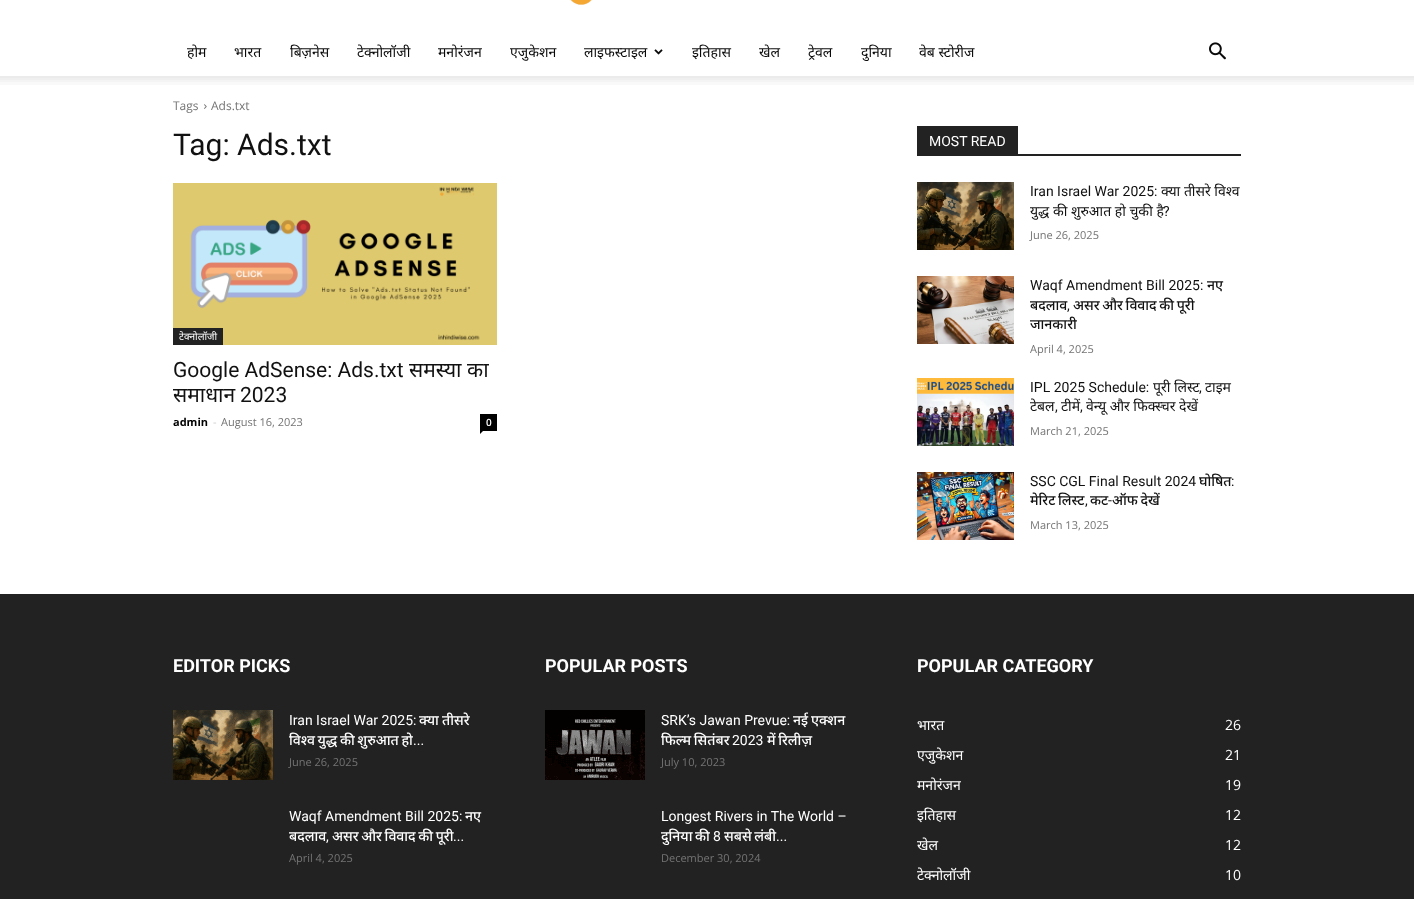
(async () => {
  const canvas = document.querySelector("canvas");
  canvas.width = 1414;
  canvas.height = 899;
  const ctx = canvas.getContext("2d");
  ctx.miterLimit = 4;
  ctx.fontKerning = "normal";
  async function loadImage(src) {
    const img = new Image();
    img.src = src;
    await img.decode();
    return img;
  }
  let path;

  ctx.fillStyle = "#ffffff";
  ctx.fillRect(0, 0, 1414, 899);
  ctx.drawImage(await loadImage("img/1.png"), 570, 0, 22, 5);
  ctx.drawImage(await loadImage("img/2.png"), 654, 49, 9, 6);
  ctx.drawImage(await loadImage("img/3.png"), 1209, 42, 17, 18);
  ctx.drawImage(await loadImage("img/4.png"), 0, 76, 1414, 9);
  ctx.drawImage(await loadImage("img/5.png"), 204, 104, 3, 5);
  ctx.drawImage(await loadImage("img/6.png"), 173, 183, 324, 162);
  ctx.fillStyle = "#222222";
  ctx.fillRect(173, 328, 50, 17);
  ctx.fillStyle = "#000000";
  ctx.fillRect(480, 414, 17, 17);
  path = new Path2D("M480 431H483L480 434Z");
  ctx.fill(path);
  ctx.fillStyle = "#222222";
  ctx.fillRect(917, 154, 324, 2);
  ctx.fillRect(917, 126, 101, 28);
  ctx.drawImage(await loadImage("img/7.png"), 917, 182, 97, 68);
  ctx.drawImage(await loadImage("img/8.png"), 917, 276, 97, 68);
  ctx.drawImage(await loadImage("img/9.png"), 917, 378, 97, 68);
  ctx.drawImage(await loadImage("img/10.png"), 917, 472, 97, 68);
  ctx.fillRect(0, 594, 1414, 305);
  ctx.drawImage(await loadImage("img/11.png"), 173, 710, 100, 70);
  ctx.drawImage(await loadImage("img/12.png"), 545, 710, 100, 70);
  ctx.font = "14px Noto Sans";
  ctx.fillStyle = "#0a0a0a";
  for (const [text, x, y] of [
    ["होम", 187, 57],
    ["भारत", 234, 57],
    ["बिज़नेस", 290, 57],
    ["टेक्नोलॉजी", 357, 57],
    ["मनोरंजन", 438, 57],
    ["एजुकेशन", 510, 57],
    ["लाइफस्टाइल", 584, 57],
    ["इतिहास", 692, 57],
    ["खेल", 759, 57],
    ["ट्रेवल", 808, 57],
    ["दुनिया", 861, 57],
    ["वेब स्टोरीज", 919, 57],
  ]) {
    ctx.fillText(text, x, y);
  }
  ctx.font = "12px Open Sans";
  ctx.fillStyle = "#747474";
  ctx.fillText("Tags", 173, 110);
  ctx.fillText("Ads.txt", 211, 110);
  ctx.font = "30px Roboto";
  ctx.fillStyle = "#111111";
  ctx.fillText("Tag: Ads.txt", 173, 155);
  ctx.font = "10px Noto Sans";
  ctx.fillStyle = "#ffffff";
  ctx.fillText("टेक्नोलॉजी", 179, 340);
  ctx.font = "21px Roboto";
  ctx.fillStyle = "#111111";
  ctx.fillText("Google AdSense: Ads.txt", 173, 377);
  ctx.font = "21px Noto Sans";
  ctx.fillText("समस्या का", 409, 377);
  ctx.fillText("समाधान", 173, 402);
  ctx.font = "21px Roboto";
  ctx.fillText("2023", 240, 402);
  ctx.font = "bold 11px Open Sans";
  ctx.fillStyle = "#000000";
  ctx.fillText("admin", 173, 426);
  ctx.font = "11px Open Sans";
  ctx.fillStyle = "#cccccc";
  ctx.fillText("-", 213, 426);
  ctx.fillStyle = "#747474";
  ctx.fillText("August 16, 2023", 221, 426);
  ctx.font = "600 10px Open Sans";
  ctx.fillStyle = "#ffffff";
  ctx.fillText("0", 486, 426);
  ctx.font = "14px Roboto";
  ctx.fillText("MOST READ", 929, 146);
  ctx.fillStyle = "#111111";
  ctx.fillText("Iran Israel War 2025:", 1030, 196);
  ctx.font = "14px Noto Sans";
  ctx.fillText("क्या तीसरे विश्व", 1161, 196);
  ctx.fillText("युद्ध की शुरुआत हो चुकी है", 1030, 216);
  ctx.font = "14px Roboto";
  ctx.fillText("?", 1163, 216);
  ctx.font = "11px Open Sans";
  ctx.fillStyle = "#747474";
  ctx.fillText("June 26, 2025", 1030, 239);
  ctx.font = "14px Roboto";
  ctx.fillStyle = "#111111";
  ctx.fillText("Waqf Amendment Bill 2025:", 1030, 290);
  ctx.font = "500 14px Noto Sans";
  ctx.fillText("नए", 1207, 290);
  ctx.fillText("बदलाव", 1030, 310);
  ctx.font = "14px Roboto";
  ctx.fillText(",", 1067, 310);
  ctx.wordSpacing = "-1px";
  ctx.font = "500 14px Noto Sans";
  ctx.fillText("असर और विवाद की पूरी", 1073, 310);
  ctx.wordSpacing = "0px";
  ctx.fillText("जानकारी", 1030, 329);
  ctx.font = "11px Open Sans";
  ctx.fillStyle = "#747474";
  ctx.fillText("April 4, 2025", 1030, 353);
  ctx.font = "14px Roboto";
  ctx.fillStyle = "#111111";
  ctx.fillText("IPL 2025 Schedule:", 1030, 392);
  ctx.font = "14px Noto Sans";
  ctx.fillText("पूरी लिस्ट", 1153, 392);
  ctx.font = "14px Roboto";
  ctx.fillText(",", 1199, 392);
  ctx.font = "14px Noto Sans";
  ctx.fillText("टाइम", 1205, 392);
  ctx.fillText("टेबल", 1030, 411);
  ctx.font = "14px Roboto";
  ctx.fillText(",", 1055, 411);
  ctx.font = "14px Noto Sans";
  ctx.fillText("टीमें", 1061, 411);
  ctx.font = "14px Roboto";
  ctx.fillText(",", 1080, 411);
  ctx.font = "14px Noto Sans";
  ctx.fillText("वेन्यू और फिक्स्चर देखें", 1086, 411);
  ctx.font = "11px Open Sans";
  ctx.fillStyle = "#747474";
  ctx.fillText("March 21, 2025", 1030, 435);
  ctx.font = "14px Roboto";
  ctx.fillStyle = "#111111";
  ctx.fillText("SSC CGL Final Result 2024", 1030, 486);
  ctx.font = "500 14px Noto Sans";
  ctx.fillText("घोषित", 1199, 486);
  ctx.font = "14px Roboto";
  ctx.fillText(":", 1231, 486);
  ctx.wordSpacing = "-1px";
  ctx.font = "500 14px Noto Sans";
  ctx.fillText("मेरिट लिस्ट", 1030, 505);
  ctx.wordSpacing = "0px";
  ctx.fillText("कट", 1090, 505);
  ctx.font = "14px Roboto";
  ctx.fillText("-", 1108, 505);
  ctx.wordSpacing = "-1px";
  ctx.font = "500 14px Noto Sans";
  ctx.fillText("ऑफ देखें", 1112, 505);
  ctx.wordSpacing = "0px";
  ctx.font = "14px Roboto";
  ctx.fillText(",", 1085, 505);
  ctx.font = "11px Open Sans";
  ctx.fillStyle = "#747474";
  ctx.fillText("March 13, 2025", 1030, 529);
  ctx.font = "bold 18px Roboto";
  ctx.fillStyle = "#ffffff";
  ctx.fillText("EDITOR PICKS", 173, 672);
  ctx.font = "14px Roboto";
  ctx.fillText("Iran Israel War 2025:", 289, 725);
  ctx.font = "500 14px Noto Sans";
  ctx.fillText("क्या", 419, 725);
  ctx.fillText("तीसरे", 442, 725);
  ctx.wordSpacing = "-1px";
  ctx.fillText("विश्व युद्ध की शुरुआत हो", 289, 745);
  ctx.wordSpacing = "0px";
  ctx.font = "14px Roboto";
  ctx.fillText("...", 413, 745);
  ctx.font = "11px Open Sans";
  ctx.fillStyle = "#747474";
  ctx.fillText("June 26, 2025", 289, 766);
  ctx.font = "14px Roboto";
  ctx.fillStyle = "#ffffff";
  ctx.fillText("Waqf Amendment Bill 2025:", 289, 821);
  ctx.font = "500 14px Noto Sans";
  ctx.fillText("नए", 465, 821);
  ctx.fillText("बदलाव", 289, 841);
  ctx.font = "14px Roboto";
  ctx.fillText(",", 326, 841);
  ctx.wordSpacing = "-1px";
  ctx.font = "500 14px Noto Sans";
  ctx.fillText("असर और विवाद की पूरी", 332, 841);
  ctx.wordSpacing = "0px";
  ctx.font = "14px Roboto";
  ctx.fillText("...", 453, 841);
  ctx.font = "11px Open Sans";
  ctx.fillStyle = "#747474";
  ctx.fillText("April 4, 2025", 289, 862);
  ctx.font = "bold 18px Roboto";
  ctx.fillStyle = "#ffffff";
  ctx.fillText("POPULAR POSTS", 545, 672);
  ctx.font = "14px Roboto";
  ctx.fillText("SRK’s Jawan Prevue:", 661, 725);
  ctx.font = "500 14px Noto Sans";
  ctx.fillText("नई", 793, 725);
  ctx.fillText("एक्शन", 811, 725);
  ctx.wordSpacing = "-1px";
  ctx.fillText("फिल्म सितंबर", 661, 745);
  ctx.wordSpacing = "0px";
  ctx.font = "14px Roboto";
  ctx.fillText("2023", 732, 745);
  ctx.wordSpacing = "-1px";
  ctx.font = "500 14px Noto Sans";
  ctx.fillText("में रिलीज़", 767, 745);
  ctx.wordSpacing = "0px";
  ctx.font = "11px Open Sans";
  ctx.fillStyle = "#747474";
  ctx.fillText("July 10, 2023", 661, 766);
  ctx.font = "14px Roboto";
  ctx.fillStyle = "#ffffff";
  ctx.fillText("Longest Rivers in The World –", 661, 821);
  ctx.wordSpacing = "-1px";
  ctx.font = "500 14px Noto Sans";
  ctx.fillText("दुनिया की", 661, 841);
  ctx.wordSpacing = "0px";
  ctx.font = "14px Roboto";
  ctx.fillText("8", 713, 841);
  ctx.wordSpacing = "-1px";
  ctx.font = "500 14px Noto Sans";
  ctx.fillText("सबसे लंबी", 724, 841);
  ctx.wordSpacing = "0px";
  ctx.font = "14px Roboto";
  ctx.fillText("...", 776, 841);
  ctx.font = "11px Open Sans";
  ctx.fillStyle = "#747474";
  ctx.fillText("December 30, 2024", 661, 862);
  ctx.font = "bold 18px Roboto";
  ctx.fillStyle = "#ffffff";
  ctx.fillText("POPULAR CATEGORY", 917, 672);
  ctx.font = "14px Noto Sans";
  ctx.fillText("भारत", 917, 730);
  ctx.font = "14px Open Sans";
  ctx.fillText("26", 1225, 730);
  ctx.font = "14px Noto Sans";
  ctx.fillText("एजुकेशन", 917, 760);
  ctx.font = "14px Open Sans";
  ctx.fillText("21", 1225, 760);
  ctx.font = "14px Noto Sans";
  ctx.fillText("मनोरंजन", 917, 790);
  ctx.font = "14px Open Sans";
  ctx.fillText("19", 1225, 790);
  ctx.font = "14px Noto Sans";
  ctx.fillText("इतिहास", 917, 820);
  ctx.font = "14px Open Sans";
  ctx.fillText("12", 1225, 820);
  ctx.save();
  ctx.beginPath();
  ctx.rect(917, 649, 324, 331);
  ctx.clip();
  ctx.font = "14px Noto Sans";
  ctx.fillText("खेल", 917, 850);
  ctx.restore();
  ctx.fillText("12", 1225, 850);
  ctx.save();
  ctx.beginPath();
  ctx.rect(917, 649, 324, 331);
  ctx.clip();
  ctx.font = "14px Noto Sans";
  ctx.fillText("टेक्नोलॉजी", 917, 880);
  ctx.restore();
  ctx.fillText("10", 1225, 880);
})();
